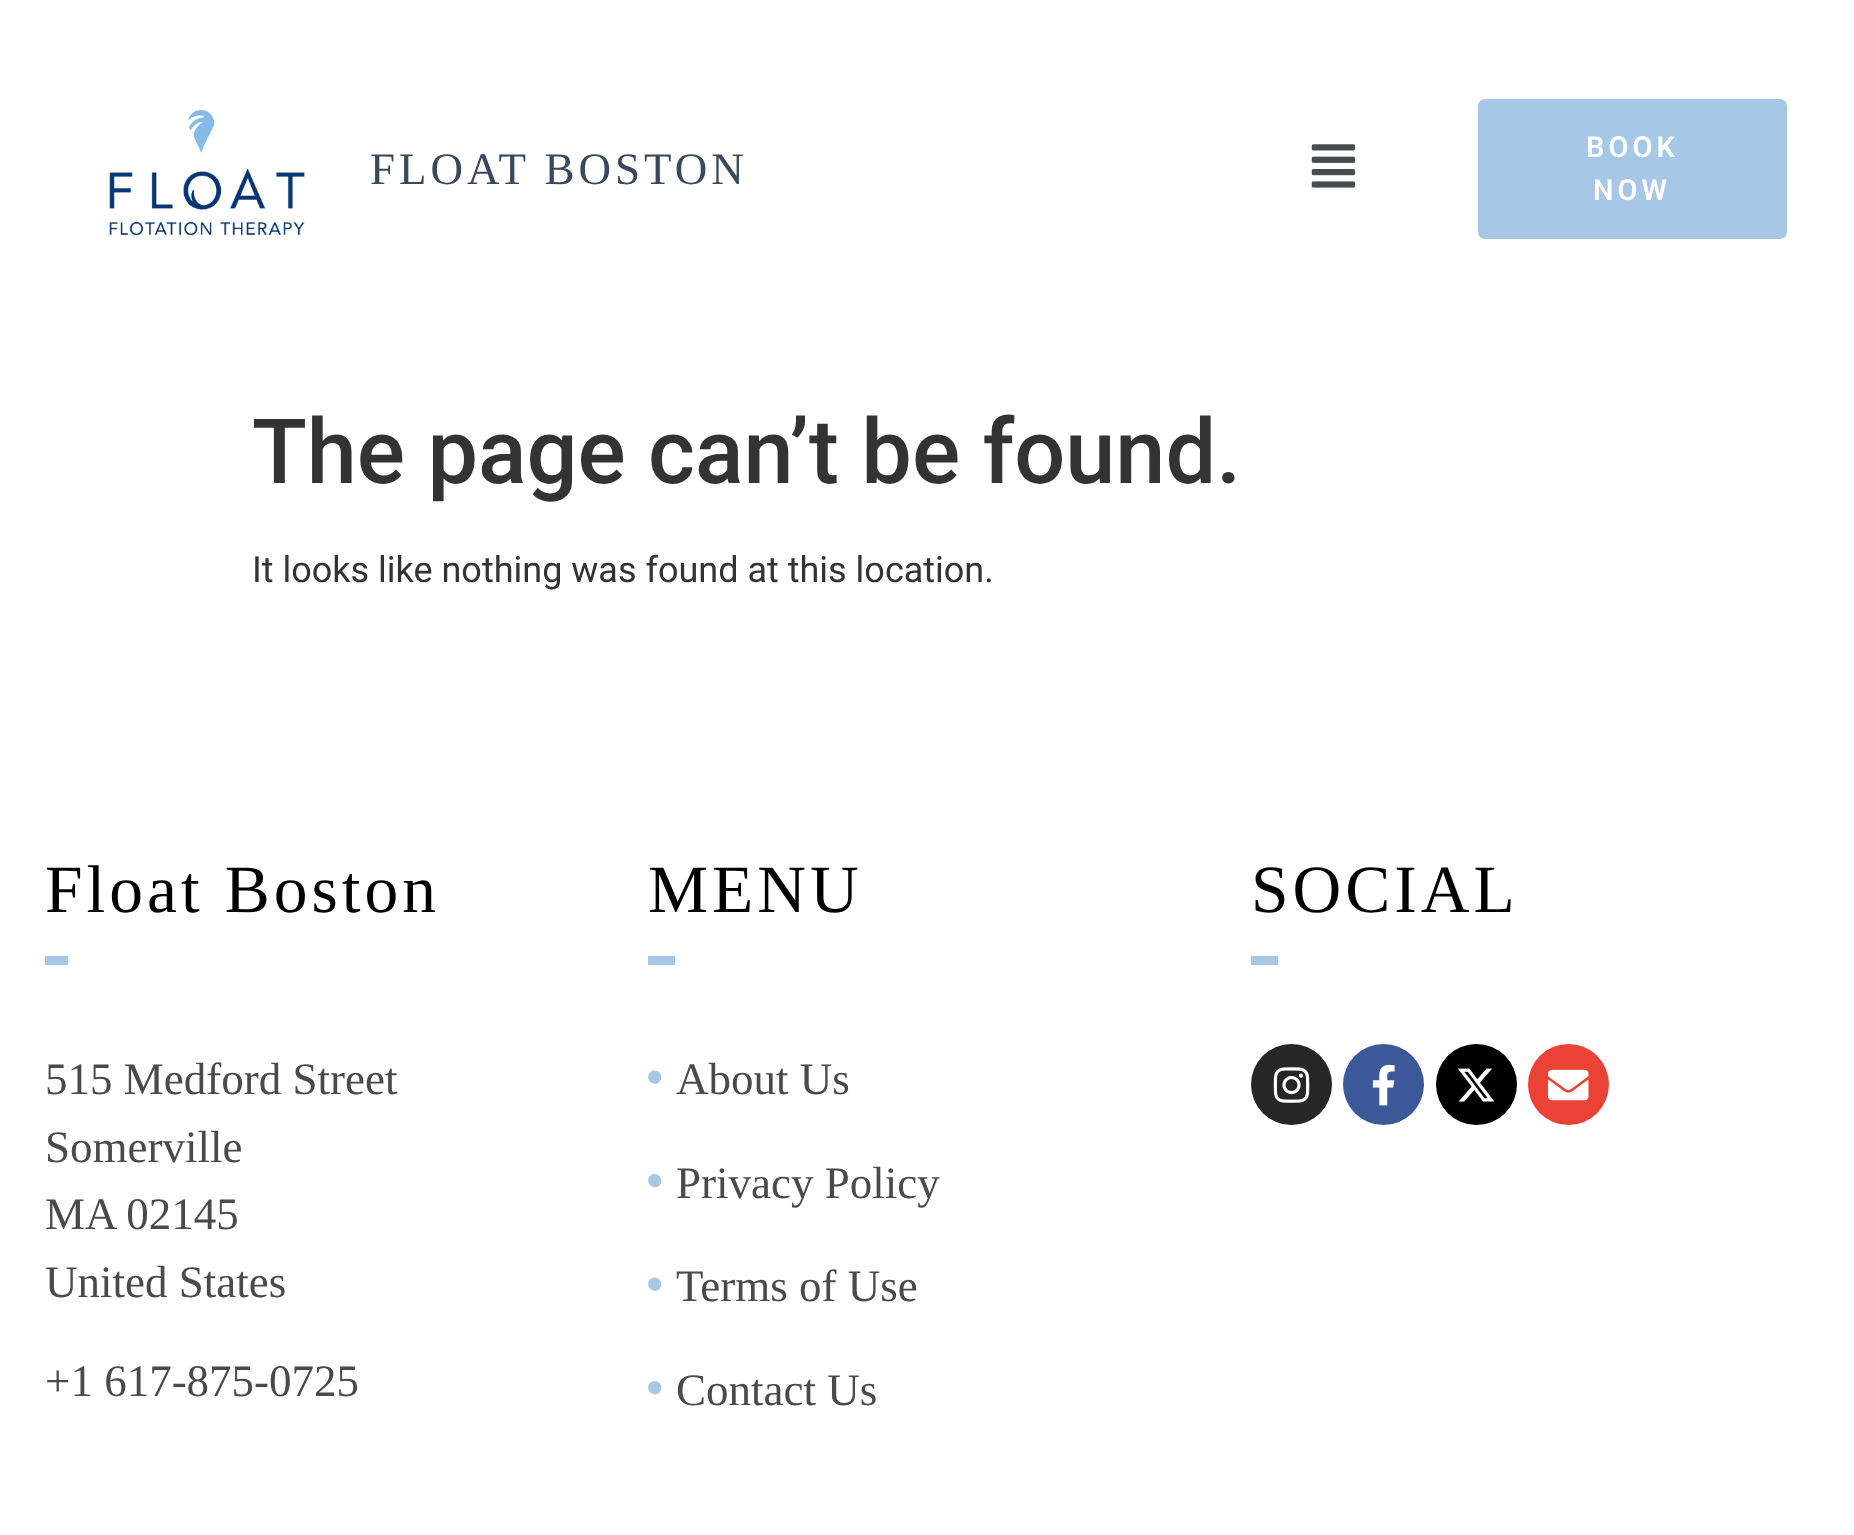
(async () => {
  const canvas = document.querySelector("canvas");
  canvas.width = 1854;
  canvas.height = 1535;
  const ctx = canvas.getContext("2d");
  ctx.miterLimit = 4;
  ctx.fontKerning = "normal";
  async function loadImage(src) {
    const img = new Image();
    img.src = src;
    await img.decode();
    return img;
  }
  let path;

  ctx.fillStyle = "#ffffff";
  ctx.fillRect(0, 0, 1854, 1535);
  ctx.drawImage(await loadImage("img/1.png"), 109, 109, 196, 128);
  ctx.drawImage(await loadImage("img/2.png"), 1311, 144, 45, 44);
  ctx.fillStyle = "#a7c7e7";
  ctx.beginPath();
  ctx.roundRect(1480.5, 101.5, 304, 135, 4.5);
  ctx.fill();
  ctx.strokeStyle = "#a7c7e7";
  ctx.lineWidth = 5;
  ctx.stroke();
  ctx.fillRect(45, 956, 23, 9);
  ctx.fillRect(648, 956, 27, 9);
  path = new Path2D("M650 1072.5C656 1066.5 665.5 1075.5 659.5 1082C653.5 1088 644 1078.5 650 1072.5Z");
  ctx.fill(path);
  path = new Path2D("M650 1176C656 1170 665.5 1179 659.5 1185.5C653.5 1191.5 644 1182 650 1176Z");
  ctx.fill(path);
  path = new Path2D("M650 1279.5C656 1273.5 665.5 1282.5 659.5 1289C653.5 1295 644 1285.5 650 1279.5Z");
  ctx.fill(path);
  path = new Path2D("M650 1383C656 1377 665.5 1386 659.5 1392.5C653.5 1398.5 644 1389 650 1383Z");
  ctx.fill(path);
  ctx.fillRect(1251, 956, 27, 9);
  ctx.fillStyle = "#262626";
  ctx.beginPath();
  ctx.arc(1291.5, 1084.5, 40.5, 0, Math.PI * 2);
  ctx.fill();
  ctx.drawImage(await loadImage("img/3.png"), 1273, 1067, 37, 36);
  ctx.fillStyle = "#3b5998";
  ctx.beginPath();
  ctx.arc(1383.5, 1084.5, 40.5, 0, Math.PI * 2);
  ctx.fill();
  ctx.drawImage(await loadImage("img/4.png"), 1372, 1064, 23, 42);
  ctx.fillStyle = "#000000";
  ctx.beginPath();
  ctx.arc(1476.5, 1084.5, 40.5, 0, Math.PI * 2);
  ctx.fill();
  ctx.drawImage(await loadImage("img/5.png"), 1458, 1068, 37, 34);
  ctx.fillStyle = "#ea4335";
  ctx.beginPath();
  ctx.arc(1568.5, 1084.5, 40.5, 0, Math.PI * 2);
  ctx.fill();
  ctx.drawImage(await loadImage("img/6.png"), 1548, 1069, 41, 32);
  ctx.letterSpacing = "4px";
  ctx.font = "45px Liberation Serif";
  ctx.fillStyle = "#38495e";
  ctx.fillText("FLOAT BOSTON", 370, 184);
  ctx.font = "600 29px Roboto";
  ctx.fillStyle = "#ffffff";
  ctx.fillText("BOOK", 1586, 157);
  ctx.fillText("NOW", 1593, 200);
  ctx.letterSpacing = "0px";
  ctx.font = "500 90px Roboto";
  ctx.fillStyle = "#333333";
  ctx.fillText("The page can’t be found.", 252, 483);
  ctx.font = "36px Roboto";
  ctx.fillText("It looks like nothing was found at this location.", 252, 582);
  ctx.letterSpacing = "4px";
  ctx.font = "67.5px Liberation Serif";
  ctx.fillStyle = "#000000";
  ctx.fillText("Float Boston", 45, 912);
  ctx.letterSpacing = "0px";
  ctx.font = "45px Liberation Serif";
  ctx.fillStyle = "#4a4a4a";
  for (const [text, x, y] of [
    ["515 Medford Street", 45, 1094],
    ["Somerville", 45, 1162],
    ["MA 02145", 45, 1229],
    ["United States", 45, 1297],
    ["+1 617-875-0725", 45, 1396],
  ]) {
    ctx.fillText(text, x, y);
  }
  ctx.letterSpacing = "4px";
  ctx.font = "67.5px Liberation Serif";
  ctx.fillStyle = "#000000";
  ctx.fillText("MENU", 648, 912);
  ctx.letterSpacing = "0px";
  ctx.font = "45px Liberation Serif";
  ctx.fillStyle = "#4a4a4a";
  for (const [text, x, y] of [
    ["About Us", 676, 1094],
    ["Privacy Policy", 676, 1198],
    ["Terms of Use", 676, 1301],
    ["Contact Us", 676, 1405],
  ]) {
    ctx.fillText(text, x, y);
  }
  ctx.letterSpacing = "4px";
  ctx.font = "67.5px Liberation Serif";
  ctx.fillStyle = "#000000";
  ctx.fillText("SOCIAL", 1251, 912);
})();
